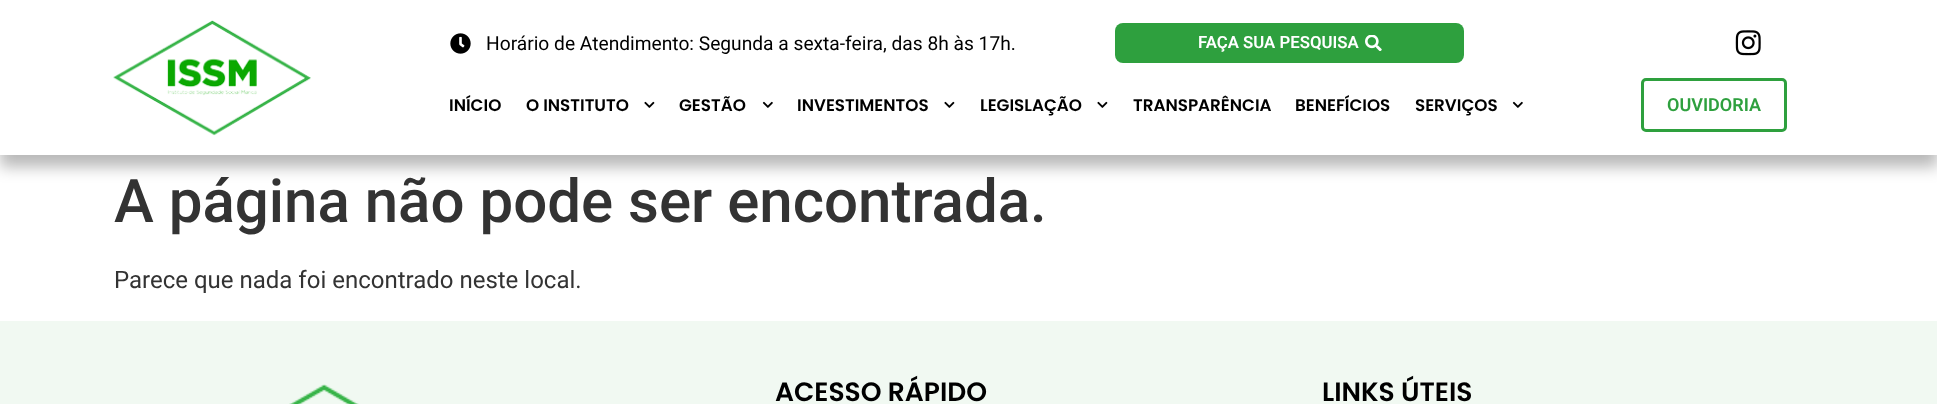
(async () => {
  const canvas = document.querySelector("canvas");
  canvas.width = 1937;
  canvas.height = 404;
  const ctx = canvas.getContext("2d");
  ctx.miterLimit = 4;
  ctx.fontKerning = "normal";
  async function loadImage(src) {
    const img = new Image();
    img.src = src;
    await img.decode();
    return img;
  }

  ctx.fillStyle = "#ffffff";
  ctx.fillRect(0, 0, 1937, 404);
  ctx.fillStyle = "rgba(0, 0, 0, 0.28)";
  ctx.filter = "blur(7.5px)";
  ctx.beginPath();
  ctx.rect(0, 12, 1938, 155);
  ctx.fill();
  ctx.filter = "none";
  ctx.fillStyle = "#ffffff";
  ctx.fillRect(0, 0, 1937, 155);
  ctx.drawImage(await loadImage("img/1.png"), 113, 20, 198, 116);
  ctx.drawImage(await loadImage("img/2.png"), 450, 33, 21, 21);
  ctx.fillStyle = "#2ea03e";
  ctx.beginPath();
  ctx.roundRect(1115, 23, 349, 40, 8);
  ctx.fill();
  ctx.drawImage(await loadImage("img/3.png"), 1365, 35, 17, 16);
  ctx.drawImage(await loadImage("img/4.png"), 1735, 30, 26, 26);
  ctx.drawImage(await loadImage("img/5.png"), 644, 101, 11, 7);
  ctx.drawImage(await loadImage("img/6.png"), 762, 101, 11, 7);
  ctx.drawImage(await loadImage("img/5.png"), 944, 101, 11, 7);
  ctx.drawImage(await loadImage("img/5.png"), 1097, 101, 11, 7);
  ctx.drawImage(await loadImage("img/6.png"), 1512, 101, 11, 7);
  ctx.beginPath();
  ctx.roundRect(1642.5, 79.5, 143, 51, 3.5);
  ctx.strokeStyle = "#2ea03e";
  ctx.lineWidth = 3;
  ctx.stroke();
  ctx.fillStyle = "#f1f9f2";
  ctx.fillRect(0, 321, 1937, 83);
  ctx.drawImage(await loadImage("img/7.png"), 289, 384, 70, 20);
  ctx.font = "19.2px Roboto";
  ctx.fillStyle = "#000000";
  ctx.fillText("Horário de Atendimento: Segunda a sexta-feira, das 8h às 17h.", 486, 50);
  ctx.font = "600 16.75px Roboto";
  ctx.fillStyle = "#ffffff";
  ctx.fillText("FAÇA SUA PESQUISA", 1198, 48);
  ctx.font = "600 16.75px Poppins";
  ctx.fillStyle = "#000000";
  for (const [text, x, y] of [
    ["INÍCIO", 449, 111],
    ["O INSTITUTO", 526, 111],
    ["GESTÃO", 679, 111],
    ["INVESTIMENTOS", 797, 111],
    ["LEGISLAÇÃO", 980, 111],
    ["TRANSPARÊNCIA", 1133, 111],
    ["BENEFÍCIOS", 1295, 111],
    ["SERVIÇOS", 1415, 111],
  ]) {
    ctx.fillText(text, x, y);
  }
  ctx.font = "600 18px Roboto";
  ctx.fillStyle = "#2ea03e";
  ctx.fillText("OUVIDORIA", 1667, 111);
  ctx.font = "500 60px Roboto";
  ctx.fillStyle = "#333333";
  ctx.fillText("A página não pode ser encontrada.", 114, 222);
  ctx.font = "24px Roboto";
  ctx.fillText("Parece que nada foi encontrado neste local.", 114, 288);
  ctx.font = "600 26.5px Poppins";
  ctx.fillStyle = "#000000";
  ctx.fillText("ACESSO RÁPIDO", 775, 401);
  ctx.fillText("LINKS ÚTEIS", 1322, 401);
})();
